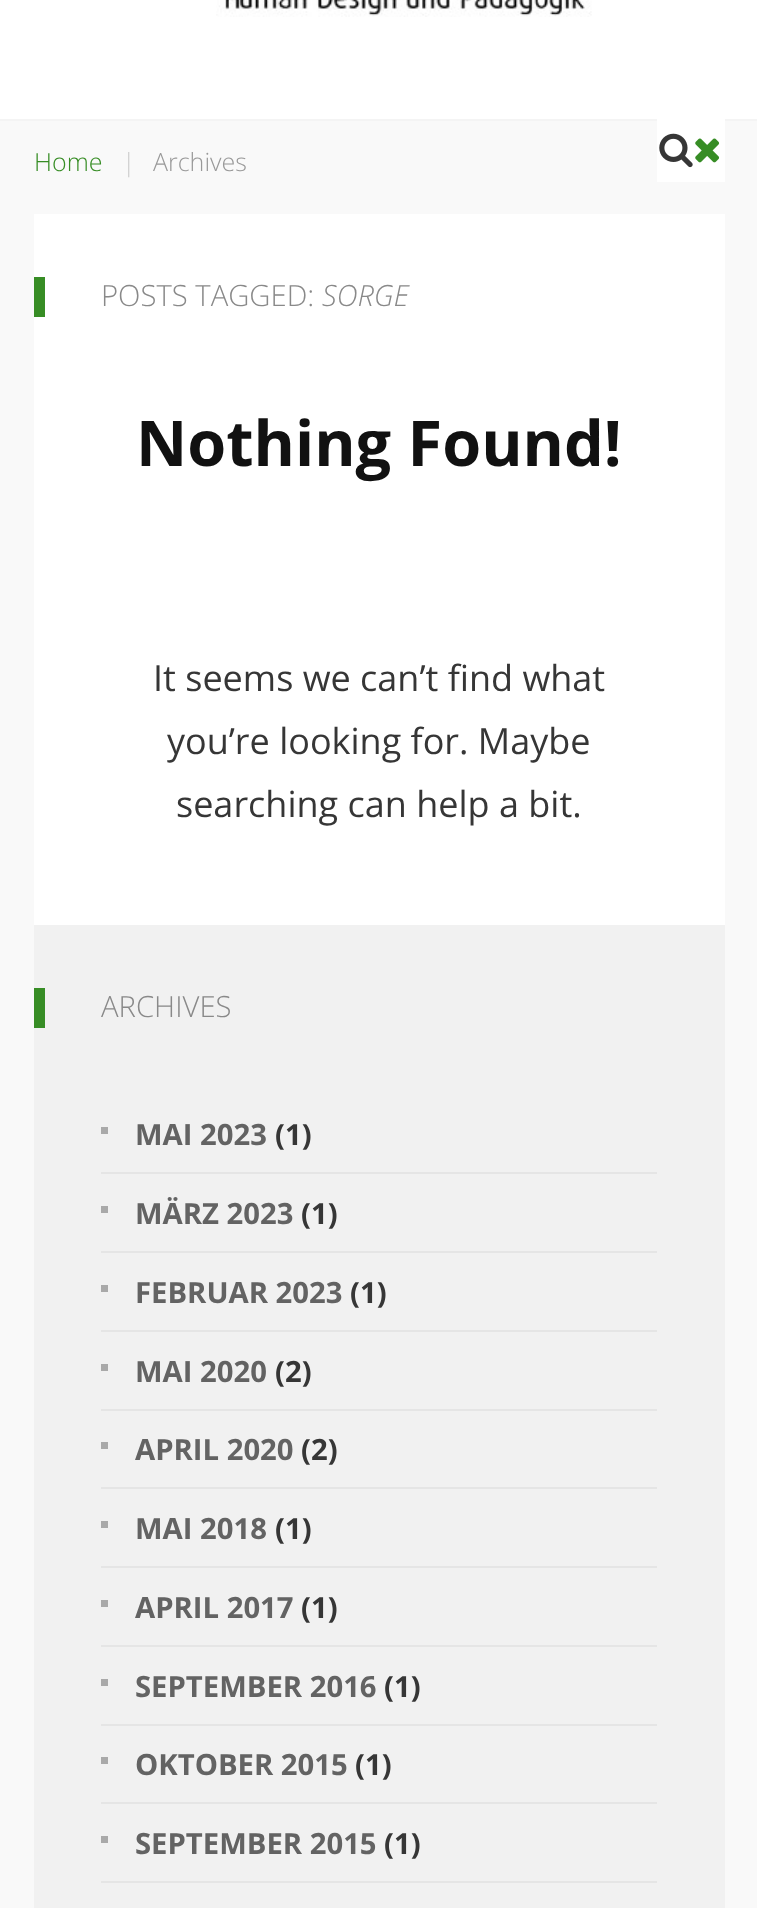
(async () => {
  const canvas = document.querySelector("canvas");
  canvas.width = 757;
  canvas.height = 1908;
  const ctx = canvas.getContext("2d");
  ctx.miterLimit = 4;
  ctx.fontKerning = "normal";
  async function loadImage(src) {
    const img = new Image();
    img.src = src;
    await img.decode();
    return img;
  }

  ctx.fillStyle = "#ffffff";
  ctx.fillRect(0, 0, 757, 1908);
  ctx.drawImage(await loadImage("img/1.png"), 216, 0, 376, 17);
  for (const [x, y, w, h, color] of [
    [0, 121, 757, 1787, "#f9f9f9"],
    [0, 119, 757, 2, "#f4f4f4"],
    [657, 119, 68, 63, "#ffffff"],
  ]) {
    ctx.fillStyle = color;
    ctx.fillRect(x, y, w, h);
  }
  ctx.drawImage(await loadImage("img/2.png"), 659, 133, 34, 35);
  ctx.drawImage(await loadImage("img/3.png"), 695, 138, 25, 25);
  for (const [x, y, w, h, color] of [
    [34, 214, 691, 711, "#ffffff"],
    [34, 277, 11, 40, "#378d25"],
    [34, 925, 691, 983, "#f1f1f1"],
    [34, 988, 11, 40, "#378d25"],
    [101, 1172, 556, 2, "#e5e5e5"],
    [101, 1127, 7, 7, "#a9a9a9"],
    [101, 1251, 556, 2, "#e5e5e5"],
    [101, 1206, 7, 7, "#a9a9a9"],
    [101, 1330, 556, 2, "#e5e5e5"],
    [101, 1285, 7, 7, "#a9a9a9"],
    [101, 1409, 556, 2, "#e5e5e5"],
    [101, 1364, 7, 7, "#a9a9a9"],
    [101, 1487, 556, 2, "#e5e5e5"],
    [101, 1442, 7, 7, "#a9a9a9"],
    [101, 1566, 556, 2, "#e5e5e5"],
    [101, 1521, 7, 7, "#a9a9a9"],
    [101, 1645, 556, 2, "#e5e5e5"],
    [101, 1600, 7, 7, "#a9a9a9"],
    [101, 1724, 556, 2, "#e5e5e5"],
    [101, 1679, 7, 7, "#a9a9a9"],
    [101, 1802, 556, 2, "#e5e5e5"],
    [101, 1757, 7, 7, "#a9a9a9"],
    [101, 1881, 556, 2, "#e5e5e5"],
    [101, 1836, 7, 7, "#a9a9a9"],
  ]) {
    ctx.fillStyle = color;
    ctx.fillRect(x, y, w, h);
  }
  ctx.font = "300 25px Open Sans";
  ctx.fillStyle = "#378d25";
  ctx.fillText("Home", 34, 171);
  ctx.fillStyle = "#cccccc";
  ctx.fillText("|", 122, 171);
  ctx.fillStyle = "#999999";
  ctx.fillText("Archives", 153, 171);
  ctx.font = "300 29.25px Open Sans";
  ctx.fillStyle = "#898989";
  ctx.fillText("POSTS TAGGED:", 101, 306);
  ctx.font = "italic 300 29.25px Open Sans";
  ctx.fillText("SORGE", 322, 306);
  ctx.font = "bold 63px Open Sans";
  ctx.fillStyle = "#111111";
  ctx.fillText("Nothing Found!", 136, 466);
  ctx.font = "36px Open Sans";
  ctx.fillStyle = "#363636";
  for (const [text, x, y] of [
    ["It seems we can’t find what", 153, 691],
    ["you’re looking for. Maybe", 167, 754],
    ["searching can help a bit.", 176, 817],
  ]) {
    ctx.fillText(text, x, y);
  }
  ctx.font = "300 29.25px Open Sans";
  ctx.fillStyle = "#898989";
  ctx.fillText("ARCHIVES", 101, 1017);
  ctx.font = "bold 29.25px Open Sans";
  ctx.fillStyle = "#636363";
  ctx.fillText("MAI 2023", 135, 1145);
  ctx.fillStyle = "#363636";
  ctx.fillText("(1)", 275, 1145);
  ctx.fillStyle = "#636363";
  ctx.fillText("MÄRZ 2023", 135, 1224);
  ctx.fillStyle = "#363636";
  ctx.fillText("(1)", 301, 1224);
  ctx.fillStyle = "#636363";
  ctx.fillText("FEBRUAR 2023", 135, 1303);
  ctx.fillStyle = "#363636";
  ctx.fillText("(1)", 350, 1303);
  ctx.fillStyle = "#636363";
  ctx.fillText("MAI 2020", 135, 1382);
  ctx.fillStyle = "#363636";
  ctx.fillText("(2)", 275, 1382);
  ctx.fillStyle = "#636363";
  ctx.fillText("APRIL 2020", 135, 1460);
  ctx.fillStyle = "#363636";
  ctx.fillText("(2)", 301, 1460);
  ctx.fillStyle = "#636363";
  ctx.fillText("MAI 2018", 135, 1539);
  ctx.fillStyle = "#363636";
  ctx.fillText("(1)", 275, 1539);
  ctx.fillStyle = "#636363";
  ctx.fillText("APRIL 2017", 135, 1618);
  ctx.fillStyle = "#363636";
  ctx.fillText("(1)", 301, 1618);
  ctx.fillStyle = "#636363";
  ctx.fillText("SEPTEMBER 2016", 135, 1697);
  ctx.fillStyle = "#363636";
  ctx.fillText("(1)", 384, 1697);
  ctx.fillStyle = "#636363";
  ctx.fillText("OKTOBER 2015", 135, 1775);
  ctx.fillStyle = "#363636";
  ctx.fillText("(1)", 355, 1775);
  ctx.fillStyle = "#636363";
  ctx.fillText("SEPTEMBER 2015", 135, 1854);
  ctx.fillStyle = "#363636";
  ctx.fillText("(1)", 384, 1854);
})();
